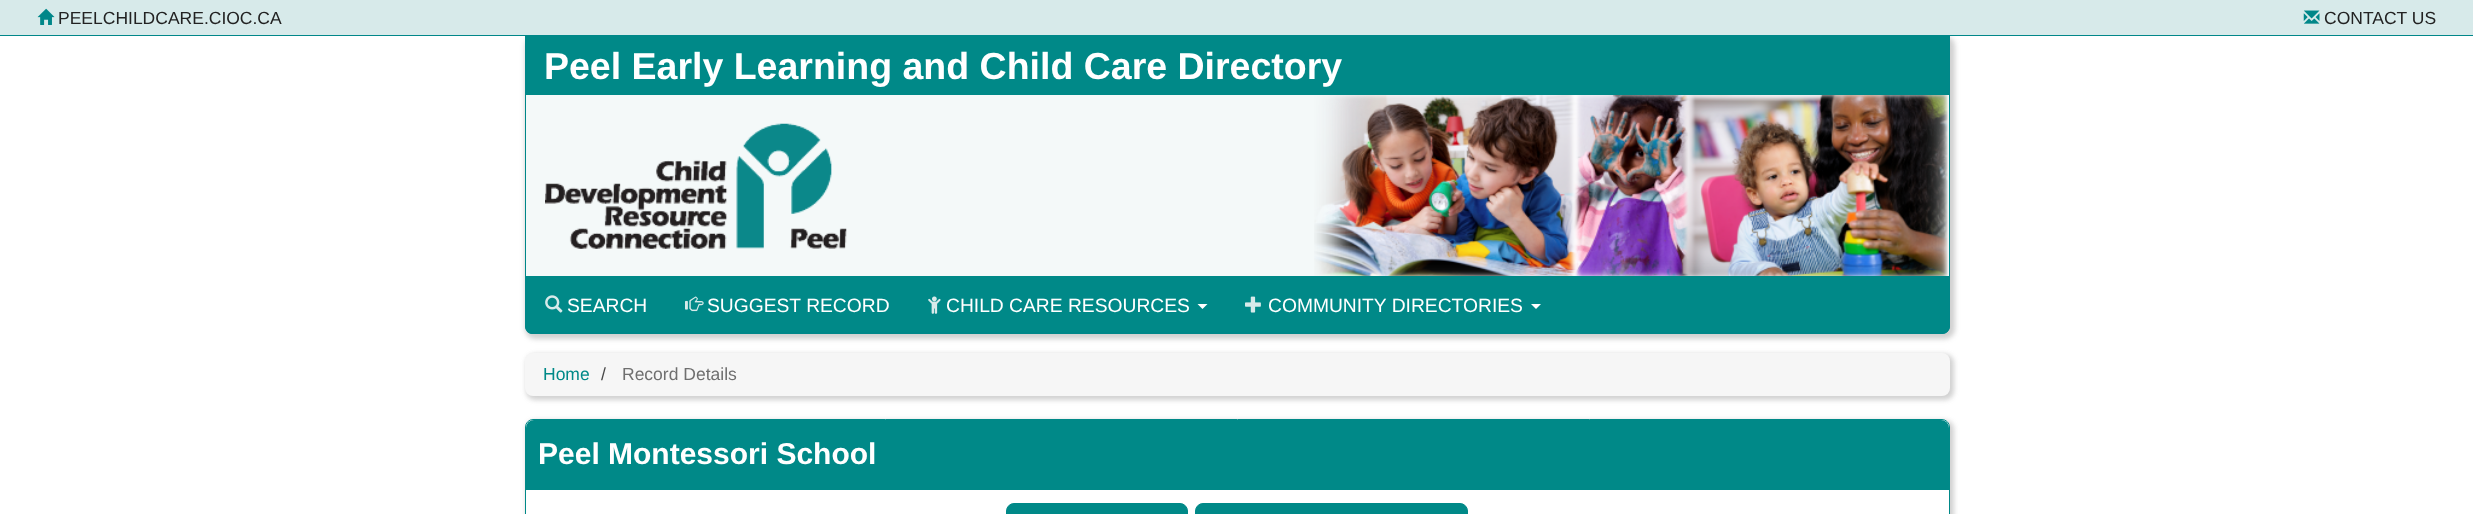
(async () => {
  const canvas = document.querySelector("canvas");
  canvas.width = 2473;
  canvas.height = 514;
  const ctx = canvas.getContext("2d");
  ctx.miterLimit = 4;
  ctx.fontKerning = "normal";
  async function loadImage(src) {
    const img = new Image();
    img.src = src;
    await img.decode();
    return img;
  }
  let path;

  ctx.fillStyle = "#ffffff";
  ctx.fillRect(0, 0, 2473, 514);
  ctx.fillStyle = "rgba(102, 102, 102, 0.3)";
  ctx.filter = "blur(2.5px)";
  ctx.beginPath();
  ctx.roundRect(525, 36, 1430, 303, 10);
  ctx.fill();
  ctx.filter = "none";
  ctx.fillStyle = "#d7eaea";
  ctx.fillRect(0, 0, 2473, 35);
  ctx.fillStyle = "#008789";
  ctx.fillRect(0, 35, 2473, 1);
  ctx.drawImage(await loadImage("img/1.png"), 37, 8, 18, 17);
  ctx.drawImage(await loadImage("img/2.png"), 2303, 10, 17, 14);
  ctx.fillStyle = "#008988";
  ctx.beginPath();
  ctx.roundRect(525, 36, 1425, 298, [0, 0, 8, 8]);
  ctx.fill();
  ctx.fillStyle = "#008789";
  path = new Path2D("M525 36H1950V326C1950 330 1947 334 1942 334H532C528 334 525 330 525 326ZM526 36H1949V326C1949 330 1946 332 1942 332H532C529 332 526 330 526 326Z");
  ctx.fill(path, "evenodd");
  ctx.fillStyle = "#f4f9f9";
  ctx.fillRect(526, 95, 1423, 181);
  ctx.drawImage(await loadImage("img/3.png"), 1314, 95, 634, 181);
  ctx.drawImage(await loadImage("img/4.png"), 545, 123, 302, 126);
  ctx.drawImage(await loadImage("img/5.png"), 545, 295, 18, 18);
  ctx.drawImage(await loadImage("img/6.png"), 685, 296, 19, 16);
  ctx.drawImage(await loadImage("img/7.png"), 928, 296, 13, 18);
  ctx.fillStyle = "#ffffff";
  path = new Path2D("M1197.5 304H1207.5L1202.5 309Z");
  ctx.fill(path);
  ctx.drawImage(await loadImage("img/8.png"), 1245, 296, 16, 17);
  path = new Path2D("M1531 304H1541L1536 309Z");
  ctx.fill(path);
  ctx.fillStyle = "rgba(102, 102, 102, 0.3)";
  ctx.filter = "blur(2.5px)";
  ctx.beginPath();
  ctx.roundRect(526, 354, 1428, 46, 9);
  ctx.fill();
  ctx.filter = "none";
  ctx.fillStyle = "#f6f6f6";
  ctx.beginPath();
  ctx.roundRect(525, 353, 1425, 43, 8);
  ctx.fill();
  ctx.save();
  path = new Path2D("M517 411H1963V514H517ZM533 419H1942C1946.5 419 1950 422.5 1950 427V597C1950 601.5 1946.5 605 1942 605H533C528.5 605 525 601.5 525 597V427C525 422.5 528.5 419 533 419Z");
  ctx.clip(path, "evenodd");
  ctx.fillStyle = "rgba(102, 102, 102, 0.3)";
  ctx.filter = "blur(2.5px)";
  ctx.beginPath();
  ctx.roundRect(526, 420, 1428, 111, 9);
  ctx.fill();
  ctx.filter = "none";
  ctx.restore();
  ctx.beginPath();
  ctx.roundRect(525.5, 419.5, 1424, 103, 7.5);
  ctx.strokeStyle = "#008988";
  ctx.stroke();
  ctx.fillStyle = "#008988";
  ctx.beginPath();
  ctx.roundRect(526, 420, 1423, 70, [8, 8, 0, 0]);
  ctx.fill();
  ctx.beginPath();
  ctx.roundRect(1006.5, 503.5, 181, 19, 7.5);
  ctx.fill();
  ctx.stroke();
  ctx.beginPath();
  ctx.roundRect(1195.5, 503.5, 272, 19, 7.5);
  ctx.fill();
  ctx.stroke();
  ctx.font = "17.5px Liberation Sans";
  ctx.fillStyle = "#222222";
  ctx.fillText("PEELCHILDCARE.CIOC.CA", 58, 24);
  ctx.fillText("CONTACT US", 2324, 24);
  ctx.font = "bold 37.5px Liberation Sans";
  ctx.fillStyle = "#ffffff";
  ctx.fillText("Peel Early Learning and Child Care Directory", 544, 79);
  ctx.font = "19.25px Liberation Sans";
  for (const [text, x, y] of [
    ["SEARCH", 567, 312],
    ["SUGGEST RECORD", 707, 312],
    ["CHILD CARE RESOURCES", 946, 312],
    ["COMMUNITY DIRECTORIES", 1268, 312],
  ]) {
    ctx.fillText(text, x, y);
  }
  ctx.font = "17.5px Liberation Sans";
  ctx.fillStyle = "#008988";
  ctx.fillText("Home", 543, 380);
  ctx.fillStyle = "#484848";
  ctx.fillText("/", 601, 380);
  ctx.fillStyle = "#6f6f6f";
  ctx.fillText("Record Details", 622, 380);
  ctx.font = "bold 30px Liberation Sans";
  ctx.fillStyle = "#ffffff";
  ctx.fillText("Peel Montessori School", 538, 464);
})();
